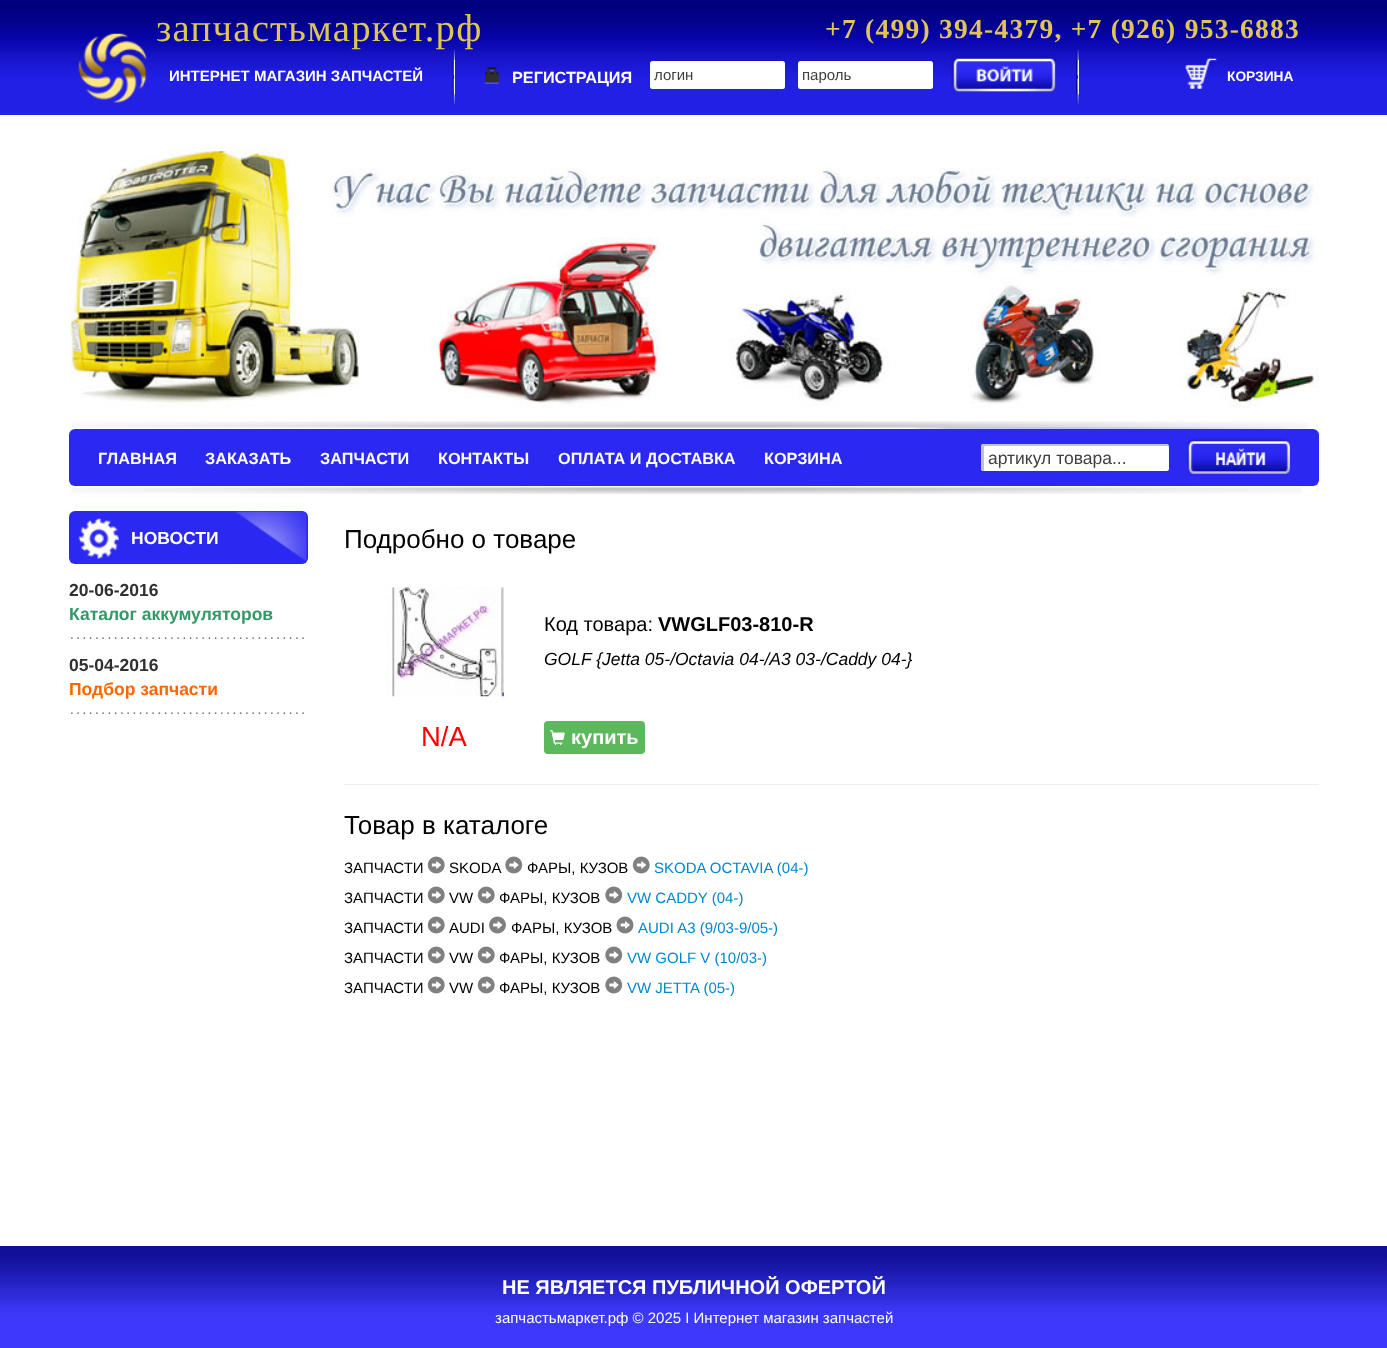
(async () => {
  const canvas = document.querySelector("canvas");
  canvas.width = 1387;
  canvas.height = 1348;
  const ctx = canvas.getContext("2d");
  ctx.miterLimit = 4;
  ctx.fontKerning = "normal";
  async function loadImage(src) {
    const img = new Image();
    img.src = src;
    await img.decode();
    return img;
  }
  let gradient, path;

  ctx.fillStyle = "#ffffff";
  ctx.fillRect(0, 0, 1387, 1348);
  gradient = ctx.createLinearGradient(694, 0, 694, 115);
  gradient.addColorStop(0, "#020181");
  gradient.addColorStop(0.08, "#00007f");
  gradient.addColorStop(0.12, "#010187");
  gradient.addColorStop(0.19, "#03028c");
  gradient.addColorStop(0.33, "#0704a9");
  gradient.addColorStop(0.43, "#0f0db9");
  gradient.addColorStop(0.45, "#1310c1");
  gradient.addColorStop(0.48, "#1613c6");
  gradient.addColorStop(0.67, "#201ee3");
  gradient.addColorStop(0.7, "#2220e5");
  gradient.addColorStop(0.97, "#2220e5");
  gradient.addColorStop(1, "#2422e7");
  ctx.fillStyle = gradient;
  ctx.fillRect(0, 0, 1387, 115);
  ctx.drawImage(await loadImage("img/1.png"), 78, 33, 69, 70);
  for (const [x, y, w, h, color] of [
    [1078, 60, 1, 34, "#e4e4fa"],
    [453, 60, 1, 34, "#0a089c"],
    [454, 60, 1, 34, "#e4e4fa"],
  ]) {
    ctx.fillStyle = color;
    ctx.fillRect(x, y, w, h);
  }
  ctx.drawImage(await loadImage("img/2.png"), 452, 50, 3, 25);
  ctx.fillStyle = "#0a089c";
  ctx.fillRect(1076, 60, 1, 34);
  ctx.drawImage(await loadImage("img/3.png"), 1076, 50, 3, 25);
  ctx.drawImage(await loadImage("img/4.png"), 452, 78, 3, 26);
  ctx.drawImage(await loadImage("img/5.png"), 485, 67, 14, 17);
  ctx.fillStyle = "#ffffff";
  ctx.beginPath();
  ctx.roundRect(650, 61, 135, 28, 2.5);
  ctx.fill();
  ctx.beginPath();
  ctx.roundRect(798, 61, 135, 28, 2.5);
  ctx.fill();
  ctx.drawImage(await loadImage("img/6.png"), 951, 55, 105, 37);
  ctx.drawImage(await loadImage("img/7.png"), 1076, 78, 3, 26);
  ctx.drawImage(await loadImage("img/8.png"), 1185, 58, 32, 31);
  ctx.drawImage(await loadImage("img/9.png"), 70, 147, 1249, 261);
  ctx.fillStyle = "#2b28f1";
  ctx.beginPath();
  ctx.roundRect(69, 429, 1250, 57, 6);
  ctx.fill();
  ctx.drawImage(await loadImage("img/10.png"), 71, 421, 1247, 8);
  ctx.fillStyle = "#ffffff";
  ctx.beginPath();
  ctx.roundRect(981, 444, 188, 27, 2.5);
  ctx.fill();
  ctx.fillStyle = "#c3c3c3";
  path = new Path2D("M985 446H1168L1169 448V446C1169 445 1168 444 1166 444H984C982 444 981 445 981 446V468C981 470 982 471 984 471H985H984V447Z");
  ctx.fill(path);
  ctx.drawImage(await loadImage("img/11.png"), 1187, 438, 103, 37);
  ctx.drawImage(await loadImage("img/12.png"), 71, 487, 1247, 7);
  ctx.fillStyle = "#2b28f1";
  ctx.beginPath();
  ctx.roundRect(69, 511, 239, 53, 6);
  ctx.fill();
  ctx.drawImage(await loadImage("img/13.png"), 235, 511, 72, 53);
  ctx.drawImage(await loadImage("img/14.png"), 78, 518, 41, 41);
  ctx.drawImage(await loadImage("img/15.png"), 71, 637, 233, 2);
  ctx.drawImage(await loadImage("img/15.png"), 71, 712, 233, 2);
  ctx.drawImage(await loadImage("img/16.png"), 385, 587, 119, 110);
  ctx.fillStyle = "#5cb85c";
  ctx.beginPath();
  ctx.roundRect(544, 721, 101, 33, 4);
  ctx.fill();
  ctx.drawImage(await loadImage("img/17.png"), 550, 730, 15, 15);
  ctx.fillStyle = "#eeeeee";
  ctx.fillRect(344, 784, 975, 1);
  ctx.drawImage(await loadImage("img/18.png"), 427, 856, 18, 18);
  ctx.drawImage(await loadImage("img/19.png"), 505, 856, 18, 18);
  ctx.drawImage(await loadImage("img/18.png"), 632, 856, 18, 18);
  ctx.drawImage(await loadImage("img/18.png"), 427, 886, 18, 18);
  ctx.drawImage(await loadImage("img/18.png"), 477, 886, 18, 18);
  ctx.drawImage(await loadImage("img/19.png"), 605, 886, 18, 18);
  ctx.drawImage(await loadImage("img/18.png"), 427, 916, 18, 18);
  ctx.drawImage(await loadImage("img/20.png"), 489, 916, 17, 18);
  ctx.drawImage(await loadImage("img/21.png"), 616, 916, 18, 18);
  ctx.drawImage(await loadImage("img/18.png"), 427, 946, 18, 18);
  ctx.drawImage(await loadImage("img/18.png"), 477, 946, 18, 18);
  ctx.drawImage(await loadImage("img/19.png"), 605, 946, 18, 18);
  ctx.drawImage(await loadImage("img/18.png"), 427, 976, 18, 18);
  ctx.drawImage(await loadImage("img/18.png"), 477, 976, 18, 18);
  ctx.drawImage(await loadImage("img/19.png"), 605, 976, 18, 18);
  gradient = ctx.createLinearGradient(694, 1246, 694, 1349);
  gradient.addColorStop(0, "#111098");
  gradient.addColorStop(0.09, "#111098");
  gradient.addColorStop(0.28, "#1f1bb6");
  gradient.addColorStop(0.3, "#201fbb");
  gradient.addColorStop(0.38, "#2623c8");
  gradient.addColorStop(0.4, "#2827cd");
  gradient.addColorStop(0.47, "#2e2cd8");
  gradient.addColorStop(0.51, "#2e2de0");
  gradient.addColorStop(0.54, "#3332e6");
  gradient.addColorStop(0.58, "#3432eb");
  gradient.addColorStop(0.6, "#3836f1");
  gradient.addColorStop(0.67, "#3a37f6");
  gradient.addColorStop(0.69, "#3c39fc");
  gradient.addColorStop(1, "#3c39fc");
  ctx.fillStyle = gradient;
  ctx.fillRect(0, 1246, 1387, 102);
  ctx.letterSpacing = "1.25px";
  ctx.font = "38.75px Liberation Serif";
  ctx.fillStyle = "#dec555";
  ctx.fillText("запчастьмаркет.рф", 156, 41);
  ctx.font = "bold 27.5px Liberation Serif";
  ctx.fillText("+7 (499) 394-4379, +7 (926) 953-6883", 825, 38);
  ctx.letterSpacing = "0px";
  ctx.font = "bold 15px Liberation Sans";
  ctx.fillStyle = "#ffffff";
  ctx.fillText("ИНТЕРНЕТ МАГАЗИН ЗАПЧАСТЕЙ", 169, 81);
  ctx.font = "bold 16.25px Liberation Sans";
  ctx.fillText("РЕГИСТРАЦИЯ", 512, 83);
  ctx.font = "15px Liberation Sans";
  ctx.fillStyle = "#3f3e40";
  ctx.fillText("логин", 654, 80);
  ctx.fillText("пароль", 802, 80);
  ctx.font = "bold 13.75px Liberation Sans";
  ctx.fillStyle = "#ffffff";
  ctx.fillText("КОРЗИНА", 1227, 81);
  ctx.font = "bold 16.25px Liberation Sans";
  for (const [text, x, y] of [
    ["ГЛАВНАЯ", 98, 464],
    ["ЗАКАЗАТЬ", 205, 464],
    ["ЗАПЧАСТИ", 320, 464],
    ["КОНТАКТЫ", 438, 464],
    ["ОПЛАТА И ДОСТАВКА", 558, 464],
    ["КОРЗИНА", 764, 464],
  ]) {
    ctx.fillText(text, x, y);
  }
  ctx.font = "17.5px Liberation Sans";
  ctx.fillStyle = "#3f3e40";
  ctx.fillText("артикул товара...", 988, 464);
  ctx.font = "bold 17.5px Liberation Sans";
  ctx.fillStyle = "#ffffff";
  ctx.fillText("НОВОСТИ", 131, 544);
  ctx.fillStyle = "#303033";
  ctx.fillText("20-06-2016", 69, 596);
  ctx.fillStyle = "#339966";
  ctx.fillText("Каталог аккумуляторов", 69, 620);
  ctx.fillStyle = "#303033";
  ctx.fillText("05-04-2016", 69, 671);
  ctx.fillStyle = "#ff6600";
  ctx.fillText("Подбор запчасти", 69, 695);
  ctx.font = "26px Liberation Sans";
  ctx.fillStyle = "#000000";
  ctx.fillText("Подробно о товаре", 344, 548);
  ctx.font = "20px Liberation Sans";
  ctx.fillText("Код товара:", 544, 631);
  ctx.font = "bold 20px Liberation Sans";
  ctx.fillText("VWGLF03-810-R", 658, 631);
  ctx.font = "italic 17.5px Liberation Sans";
  ctx.fillText("GOLF {Jetta 05-/Octavia 04-/A3 03-/Caddy 04-}", 544, 665);
  ctx.font = "27.5px Liberation Sans";
  ctx.fillStyle = "#ff0000";
  ctx.fillText("N/A", 421, 746);
  ctx.font = "bold 20px Liberation Sans";
  ctx.fillStyle = "#ffffff";
  ctx.fillText("купить", 571, 744);
  ctx.font = "26px Liberation Sans";
  ctx.fillStyle = "#000000";
  ctx.fillText("Товар в каталоге", 344, 834);
  ctx.font = "15px Liberation Sans";
  for (const [text, x, y] of [
    ["ЗАПЧАСТИ", 344, 873],
    ["SKODA", 449, 873],
    ["ФАРЫ, КУЗОВ", 527, 873],
  ]) {
    ctx.fillText(text, x, y);
  }
  ctx.fillStyle = "#0088cc";
  ctx.fillText("SKODA OCTAVIA (04-)", 654, 873);
  ctx.fillStyle = "#000000";
  for (const [text, x, y] of [
    ["ЗАПЧАСТИ", 344, 903],
    ["VW", 449, 903],
    ["ФАРЫ, КУЗОВ", 499, 903],
  ]) {
    ctx.fillText(text, x, y);
  }
  ctx.fillStyle = "#0088cc";
  ctx.fillText("VW CADDY (04-)", 627, 903);
  ctx.fillStyle = "#000000";
  for (const [text, x, y] of [
    ["ЗАПЧАСТИ", 344, 933],
    ["AUDI", 449, 933],
    ["ФАРЫ, КУЗОВ", 511, 933],
  ]) {
    ctx.fillText(text, x, y);
  }
  ctx.fillStyle = "#0088cc";
  ctx.fillText("AUDI A3 (9/03-9/05-)", 638, 933);
  ctx.fillStyle = "#000000";
  for (const [text, x, y] of [
    ["ЗАПЧАСТИ", 344, 963],
    ["VW", 449, 963],
    ["ФАРЫ, КУЗОВ", 499, 963],
  ]) {
    ctx.fillText(text, x, y);
  }
  ctx.fillStyle = "#0088cc";
  ctx.fillText("VW GOLF V (10/03-)", 627, 963);
  ctx.fillStyle = "#000000";
  for (const [text, x, y] of [
    ["ЗАПЧАСТИ", 344, 993],
    ["VW", 449, 993],
    ["ФАРЫ, КУЗОВ", 499, 993],
  ]) {
    ctx.fillText(text, x, y);
  }
  ctx.fillStyle = "#0088cc";
  ctx.fillText("VW JETTA (05-)", 627, 993);
  ctx.font = "bold 20px Liberation Sans";
  ctx.fillStyle = "#ffffff";
  ctx.fillText("НЕ ЯВЛЯЕТСЯ ПУБЛИЧНОЙ ОФЕРТОЙ", 502, 1294);
  ctx.font = "15px Liberation Sans";
  ctx.fillText("запчастьмаркет.рф © 2025 I Интернет магазин запчастей", 495, 1323);
})();
